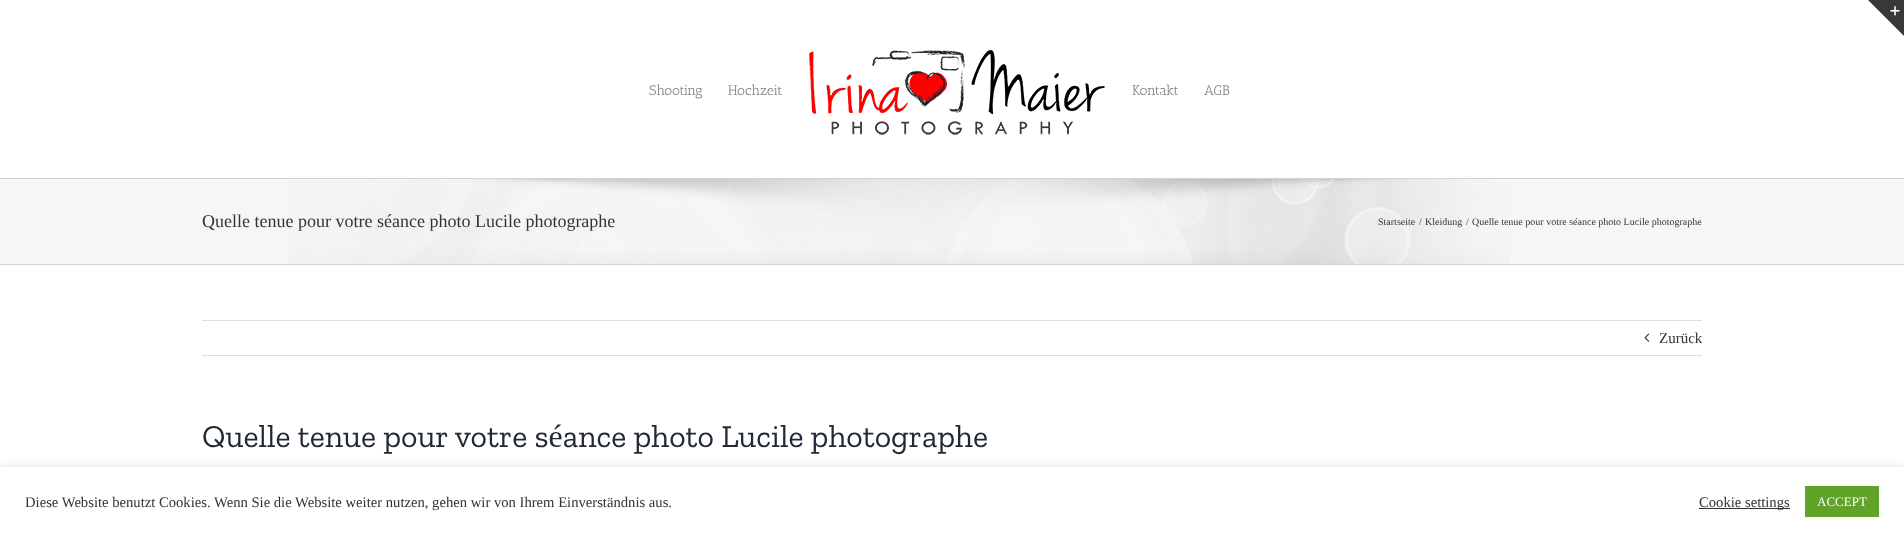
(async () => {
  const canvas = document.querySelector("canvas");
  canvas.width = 1904;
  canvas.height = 536;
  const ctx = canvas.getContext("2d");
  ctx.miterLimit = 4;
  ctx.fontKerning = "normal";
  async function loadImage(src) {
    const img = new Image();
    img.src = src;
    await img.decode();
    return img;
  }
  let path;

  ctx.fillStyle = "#ffffff";
  ctx.fillRect(0, 0, 1904, 536);
  ctx.fillStyle = "#363839";
  path = new Path2D("M1868 0H1904V36Z");
  ctx.fill(path);
  ctx.drawImage(await loadImage("img/1.png"), 1890, 6, 10, 10);
  ctx.drawImage(await loadImage("img/2.png"), 809, 50, 296, 85);
  ctx.fillStyle = "#f6f6f6";
  ctx.fillRect(0, 179, 1904, 85);
  ctx.drawImage(await loadImage("img/3.png"), 288, 179, 1222, 85);
  for (const [x, y, w, h, color] of [
    [0, 178, 1904, 1, "#d2d3d4"],
    [0, 264, 1904, 1, "#d2d3d4"],
    [202, 320, 1500, 1, "#e0dede"],
    [202, 355, 1500, 1, "#e0dede"],
  ]) {
    ctx.fillStyle = color;
    ctx.fillRect(x, y, w, h);
  }
  ctx.drawImage(await loadImage("img/4.png"), 1644, 333, 6, 9);
  ctx.fillStyle = "rgba(172, 171, 171, 0.3)";
  ctx.filter = "blur(5px)";
  ctx.beginPath();
  ctx.rect(0, 466, 1904, 69);
  ctx.fill();
  ctx.filter = "none";
  for (const [x, y, w, h, color] of [
    [0, 467, 1904, 69, "#ffffff"],
    [1699, 508, 91, 1, "#333333"],
    [1805, 486, 74, 31, "#61a229"],
  ]) {
    ctx.fillStyle = color;
    ctx.fillRect(x, y, w, h);
  }
  ctx.font = "14px Antic Slab";
  ctx.fillStyle = "#848484";
  for (const [text, x, y] of [
    ["Shooting", 649, 95],
    ["Hochzeit", 728, 95],
    ["Kontakt", 1132, 95],
    ["AGB", 1204, 95],
  ]) {
    ctx.fillText(text, x, y);
  }
  ctx.font = "18px Liberation Serif";
  ctx.fillStyle = "#333333";
  ctx.fillText("Quelle tenue pour votre séance photo Lucile photographe", 202, 227);
  ctx.font = "10px Liberation Serif";
  for (const [text, x, y] of [
    ["Startseite", 1378, 225],
    ["/", 1419, 225],
    ["Kleidung", 1425, 225],
    ["/", 1466, 225],
    ["Quelle tenue pour votre séance photo Lucile photographe", 1472, 225],
  ]) {
    ctx.fillText(text, x, y);
  }
  ctx.font = "15px Liberation Serif";
  ctx.fillText("Zurück", 1659, 343);
  ctx.font = "32px Zilla Slab";
  ctx.fillStyle = "#212934";
  ctx.fillText("Quelle tenue pour votre séance photo Lucile photographe", 202, 447);
  ctx.font = "14.65px Liberation Serif";
  ctx.fillStyle = "#333333";
  ctx.fillText("Diese Website benutzt Cookies. Wenn Sie die Website weiter nutzen, gehen wir von Ihrem Einverständnis aus.", 25, 507);
  ctx.fillText("Cookie settings", 1699, 507);
  ctx.font = "13px Liberation Serif";
  ctx.fillStyle = "#ffffff";
  ctx.fillText("ACCEPT", 1817, 506);
})();
